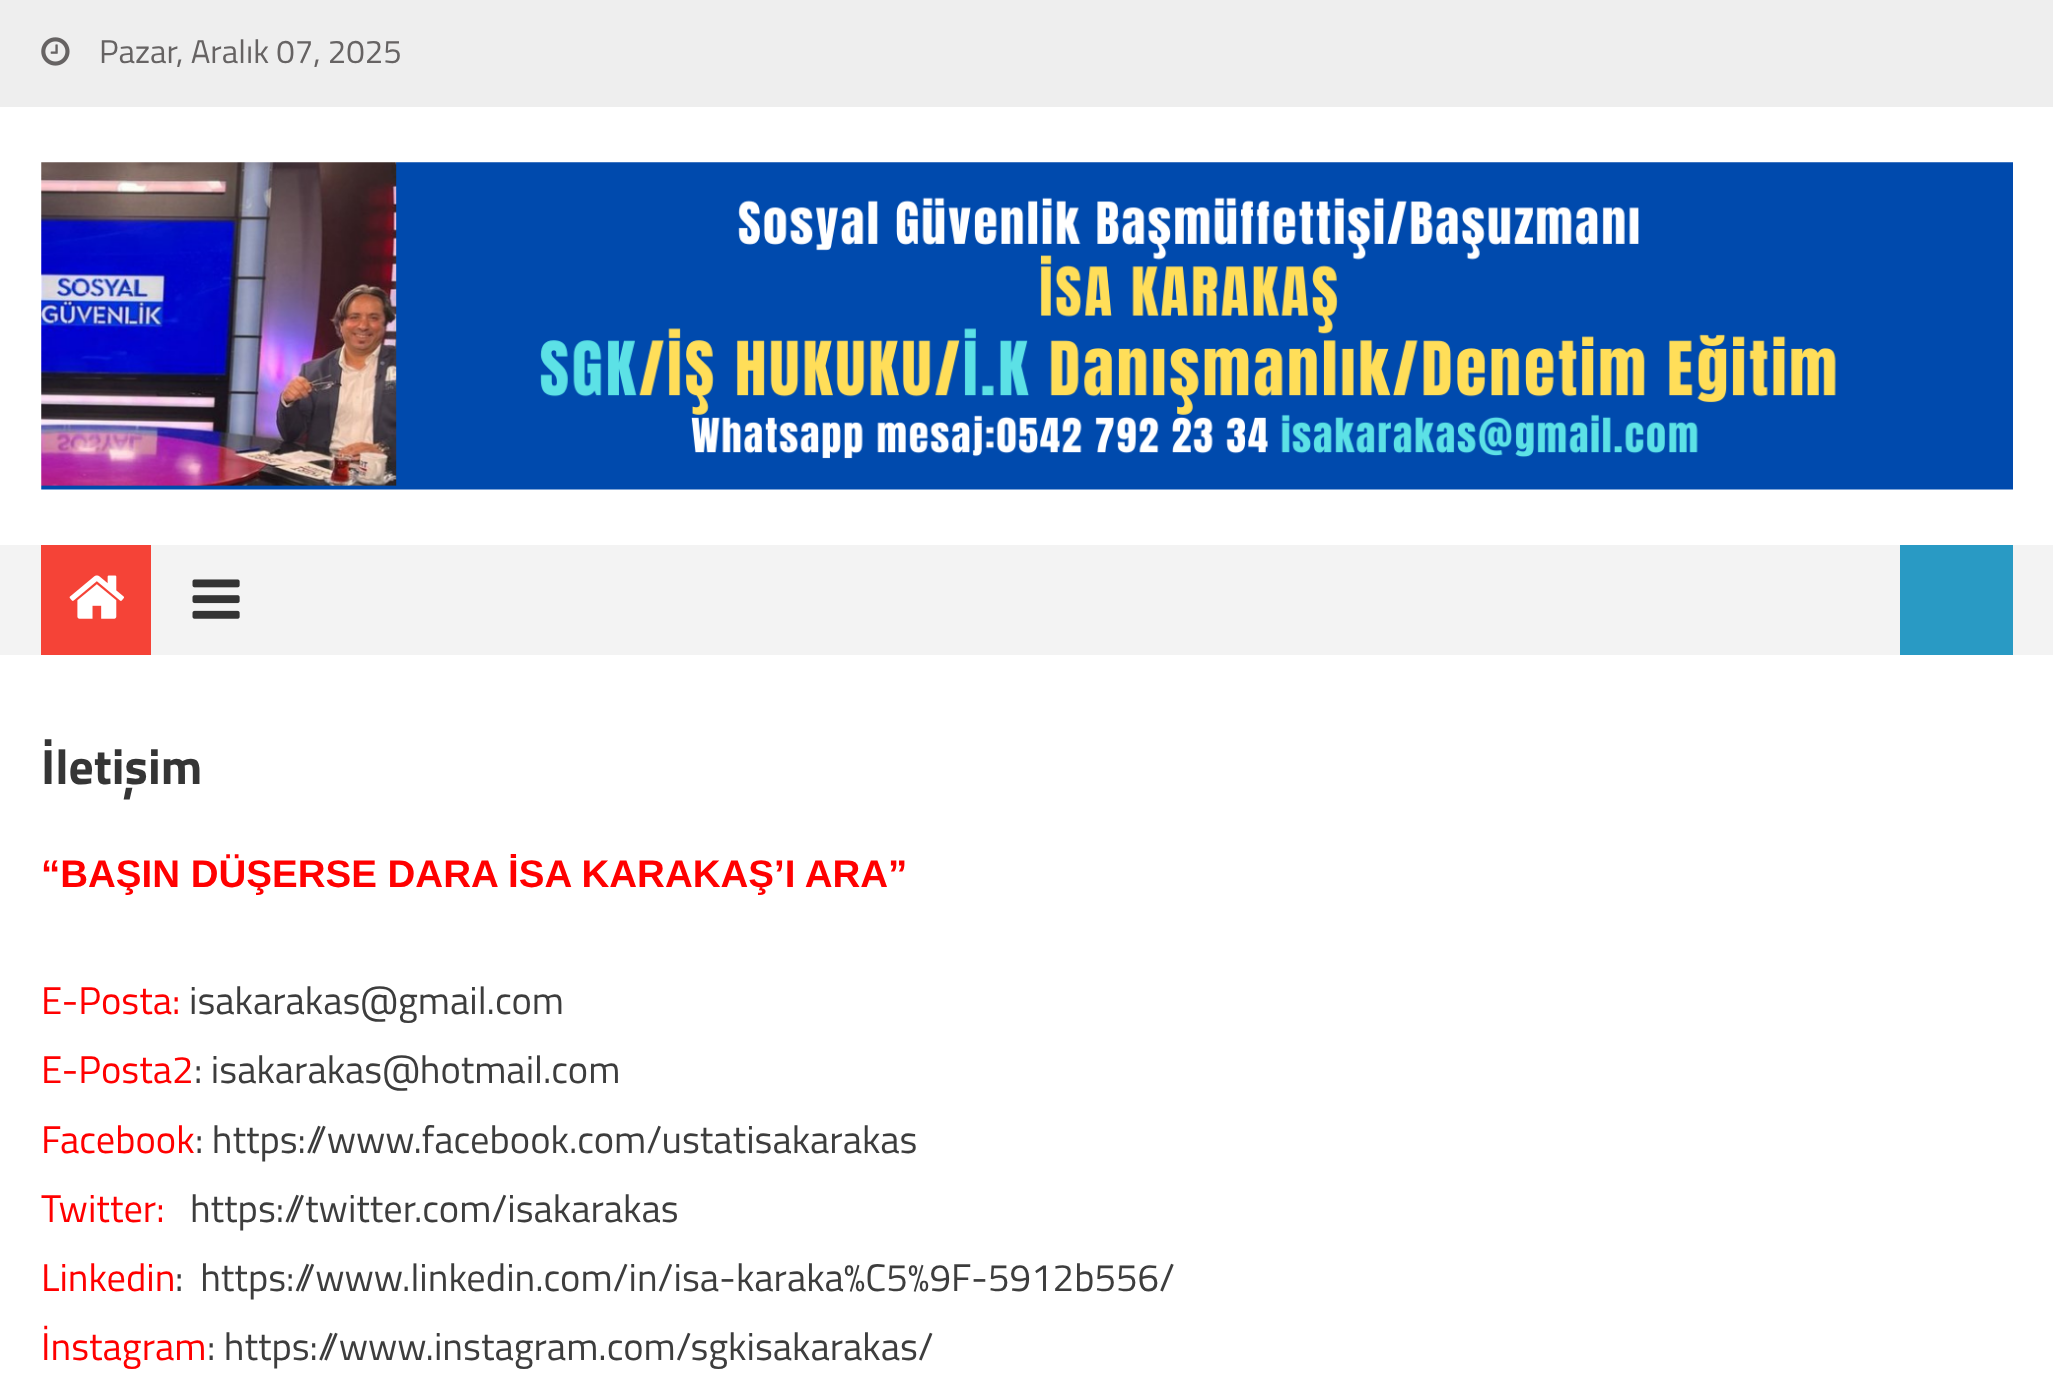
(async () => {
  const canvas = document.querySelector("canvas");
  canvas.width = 2053;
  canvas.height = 1375;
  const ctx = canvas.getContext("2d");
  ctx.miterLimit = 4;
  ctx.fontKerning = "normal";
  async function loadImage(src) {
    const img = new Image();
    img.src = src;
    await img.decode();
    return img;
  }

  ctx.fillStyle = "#ffffff";
  ctx.fillRect(0, 0, 2053, 1375);
  ctx.fillStyle = "#eeeeee";
  ctx.fillRect(0, 0, 2053, 107);
  ctx.drawImage(await loadImage("img/1.png"), 41, 37, 29, 29);
  ctx.drawImage(await loadImage("img/2.png"), 41, 162, 1972, 328);
  ctx.fillStyle = "#f3f3f3";
  ctx.fillRect(0, 545, 2053, 110);
  ctx.fillStyle = "#f54337";
  ctx.fillRect(41, 545, 110, 110);
  ctx.drawImage(await loadImage("img/3.png"), 69, 575, 55, 44);
  ctx.drawImage(await loadImage("img/4.png"), 192, 579, 48, 40);
  ctx.fillStyle = "#299ac4";
  ctx.fillRect(1900, 545, 113, 110);
  ctx.font = "33px Titillium Web";
  ctx.fillStyle = "#666363";
  ctx.fillText("Pazar, Aralık 07, 2025", 99, 63);
  ctx.font = "bold 49.5px Titillium Web";
  ctx.fillStyle = "#353535";
  ctx.fillText("İletişim", 41, 784);
  ctx.font = "bold 38.5px Liberation Sans";
  ctx.fillStyle = "#ff0000";
  ctx.fillText("“BAŞIN DÜŞERSE DARA İSA KARAKAŞ’I ARA”", 41, 887);
  ctx.font = "38.5px Titillium Web";
  ctx.fillText("E-Posta:", 41, 1014);
  ctx.fillStyle = "#3d3d3d";
  ctx.fillText("isakarakas@gmail.com", 189, 1014);
  ctx.fillStyle = "#ff0000";
  ctx.fillText("E-Posta2", 41, 1083);
  ctx.fillStyle = "#3d3d3d";
  ctx.fillText(": isakarakas@hotmail.com", 194, 1083);
  ctx.fillStyle = "#ff0000";
  ctx.fillText("Facebook", 41, 1153);
  ctx.fillStyle = "#3d3d3d";
  ctx.fillText(": https://www.facebook.com/ustatisakarakas", 195, 1153);
  ctx.fillStyle = "#ff0000";
  ctx.fillText("Twitter:", 41, 1222);
  ctx.fillStyle = "#3d3d3d";
  ctx.fillText("https://twitter.com/isakarakas", 190, 1222);
  ctx.fillStyle = "#ff0000";
  ctx.fillText("Linkedin", 41, 1291);
  ctx.fillStyle = "#3d3d3d";
  ctx.fillText(":  https://www.linkedin.com/in/isa-karaka%C5%9F-5912b556/", 175, 1291);
  ctx.fillStyle = "#ff0000";
  ctx.fillText("İnstagram", 41, 1360);
  ctx.fillStyle = "#3d3d3d";
  ctx.fillText(": https://www.instagram.com/sgkisakarakas/", 207, 1360);
})();
